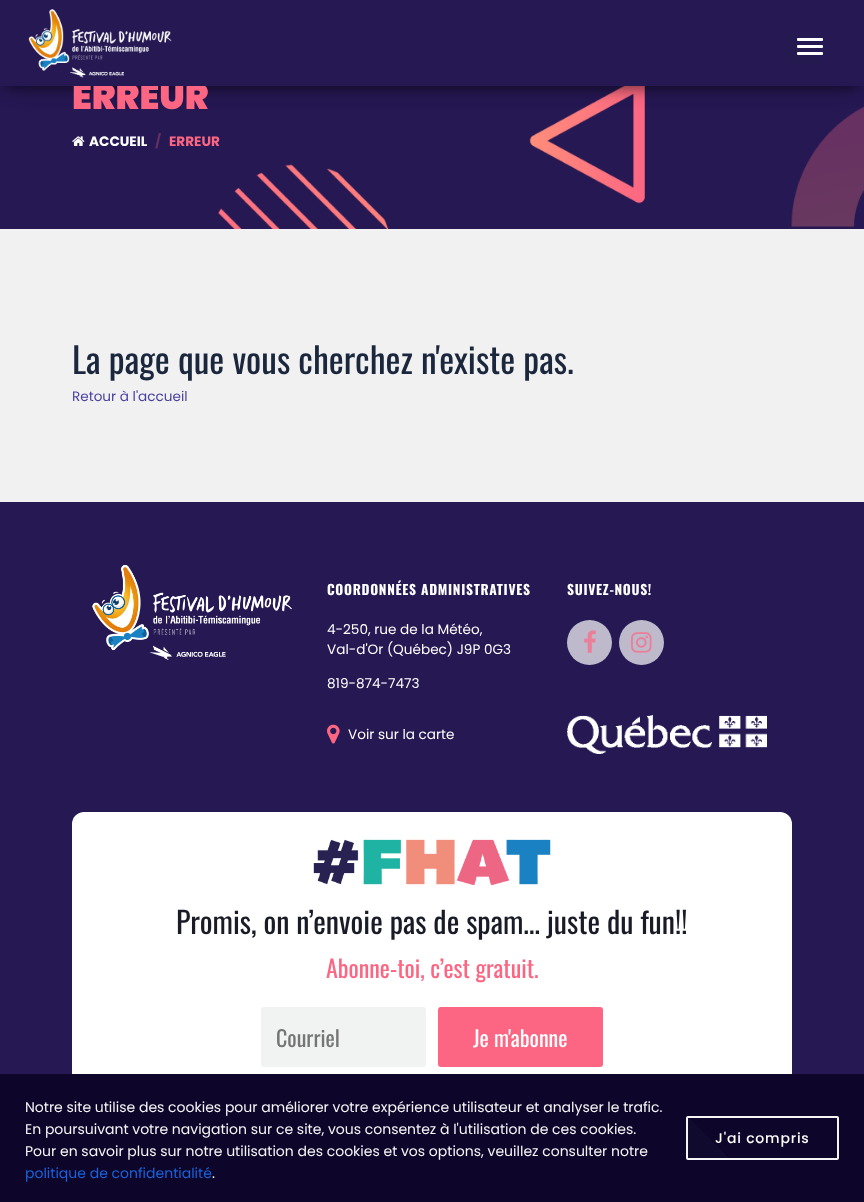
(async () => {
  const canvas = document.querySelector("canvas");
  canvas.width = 864;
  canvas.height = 1202;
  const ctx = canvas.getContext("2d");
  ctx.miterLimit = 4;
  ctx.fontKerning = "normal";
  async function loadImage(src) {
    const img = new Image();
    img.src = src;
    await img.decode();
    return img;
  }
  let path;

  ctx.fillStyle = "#f1f1f1";
  ctx.fillRect(0, 0, 864, 1202);
  ctx.drawImage(await loadImage("img/2.png"), 0, 86, 864, 143);
  ctx.fillStyle = "rgba(0, 0, 0, 0.2)";
  ctx.filter = "blur(5px)";
  ctx.beginPath();
  ctx.rect(5, 13, 854, 76);
  ctx.fill();
  ctx.filter = "none";
  ctx.fillStyle = "rgba(0, 0, 0, 0.12)";
  ctx.filter = "blur(10px)";
  ctx.beginPath();
  ctx.rect(0, 3, 864, 86);
  ctx.fill();
  ctx.filter = "none";
  ctx.fillStyle = "rgba(0, 0, 0, 0.42)";
  ctx.filter = "blur(10px)";
  ctx.beginPath();
  ctx.rect(12, 22, 840, 62);
  ctx.fill();
  ctx.filter = "none";
  ctx.drawImage(await loadImage("img/3.png"), 72, 136, 13, 10);
  ctx.fillStyle = "#261853";
  ctx.fillRect(0, 502, 864, 572);
  ctx.drawImage(await loadImage("img/4.png"), 92, 565, 200, 95);
  ctx.drawImage(await loadImage("img/5.png"), 327, 724, 13, 20);
  ctx.fillStyle = "#bebacb";
  ctx.beginPath();
  ctx.arc(589.5, 642.5, 22.5, 0, Math.PI * 2);
  ctx.fill();
  ctx.drawImage(await loadImage("img/6.png"), 584, 630, 12, 23);
  ctx.beginPath();
  ctx.arc(641.5, 642.5, 22.5, 0, Math.PI * 2);
  ctx.fill();
  ctx.drawImage(await loadImage("img/7.png"), 631, 632, 21, 21);
  ctx.drawImage(await loadImage("img/8.png"), 567, 715, 200, 39);
  ctx.fillStyle = "#ffffff";
  ctx.beginPath();
  ctx.roundRect(72, 812, 720, 307, 12);
  ctx.fill();
  ctx.drawImage(await loadImage("img/9.png"), 313, 839, 238, 47);
  ctx.fillStyle = "#f1f2f2";
  ctx.beginPath();
  ctx.roundRect(261, 1007, 165, 60, 3);
  ctx.fill();
  ctx.fillStyle = "#fc6683";
  ctx.beginPath();
  ctx.roundRect(438, 1007, 165, 60, 3);
  ctx.fill();
  ctx.fillStyle = "#0e052b";
  ctx.fillRect(0, 1074, 864, 128);
  ctx.beginPath();
  ctx.roundRect(687, 1117, 151, 42, 1);
  ctx.strokeStyle = "#f5f5f5";
  ctx.lineWidth = 2;
  ctx.stroke();
  ctx.font = "900 35.6px Poppins";
  ctx.fillStyle = "#fc6683";
  ctx.fillText("ERREUR", 72, 109);
  ctx.fillStyle = "#261853";
  ctx.fillRect(0, 0, 864, 86);
  ctx.fillStyle = "#241a50";
  path = new Path2D("M788.5 29.5L823 64H790C788.5 64 787 62.5 787 61V32C787 31 787.5 30 788.5 29.5Z");
  ctx.fill(path);
  ctx.fillStyle = "#ffffff";
  ctx.beginPath();
  ctx.roundRect(797, 52, 26, 3, 1);
  ctx.fill();
  ctx.beginPath();
  ctx.roundRect(797, 45, 26, 3, 1);
  ctx.fill();
  ctx.beginPath();
  ctx.roundRect(797, 38, 26, 3, 1);
  ctx.fill();
  ctx.drawImage(await loadImage("img/1.png"), 28, 9, 144, 69);
  ctx.font = "bold 13.6px Poppins";
  ctx.fillText("ACCUEIL", 89, 146);
  ctx.fillStyle = "#662f61";
  ctx.fillText("/", 155, 146);
  ctx.fillStyle = "#fc6683";
  ctx.fillText("ERREUR", 169, 146);
  ctx.font = "35.6px Oswald";
  ctx.fillStyle = "#1b273d";
  ctx.fillText("La page que vous cherchez n'existe pas.", 72, 374);
  ctx.font = "13.6px Poppins";
  ctx.fillStyle = "#483fa1";
  ctx.fillText("Retour à l'accueil", 72, 401);
  ctx.letterSpacing = "0.7px";
  ctx.font = "bold 13.6px Oswald";
  ctx.fillStyle = "#ffffff";
  ctx.fillText("COORDONNÉES ADMINISTRATIVES", 327, 595);
  ctx.letterSpacing = "0px";
  ctx.font = "13.6px Poppins";
  for (const [text, x, y] of [
    ["4-250, rue de la Météo,", 327, 634],
    ["Val-d'Or (Québec) J9P 0G3", 327, 654],
    ["819-874-7473", 327, 688],
    ["Voir sur la carte", 348, 739],
  ]) {
    ctx.fillText(text, x, y);
  }
  ctx.letterSpacing = "0.7px";
  ctx.font = "bold 13.6px Oswald";
  ctx.fillText("SUIVEZ-NOUS!", 567, 595);
  ctx.letterSpacing = "0px";
  ctx.font = "30px Oswald";
  ctx.fillStyle = "#191b27";
  ctx.fillText("Promis, on n’envoie pas de spam… juste du fun!!", 176, 934);
  ctx.font = "24px Oswald";
  ctx.fillStyle = "#fc6683";
  ctx.fillText("Abonne-toi, c’est gratuit.", 326, 978);
  ctx.font = "22px Oswald";
  ctx.fillStyle = "#757575";
  ctx.fillText("Courriel", 276, 1047);
  ctx.fillStyle = "#ffffff";
  ctx.fillText("Je m'abonne", 473, 1047);
  ctx.font = "14px Poppins";
  ctx.fillStyle = "#f5f5f5";
  for (const [text, x, y] of [
    ["Notre site utilise des cookies pour améliorer votre expérience utilisateur et analyser le trafic.", 25, 1112],
    ["En poursuivant votre navigation sur ce site, vous consentez à l'utilisation de ces cookies.", 25, 1134],
    ["Pour en savoir plus sur notre utilisation des cookies et vos options, veuillez consulter notre", 25, 1156],
  ]) {
    ctx.fillText(text, x, y);
  }
  ctx.fillStyle = "#1863dc";
  ctx.fillText("politique de confidentialité", 25, 1178);
  ctx.fillStyle = "#f5f5f5";
  ctx.fillText(".", 212, 1178);
  ctx.letterSpacing = "0.8px";
  ctx.font = "500 14px Poppins";
  ctx.fillStyle = "#ffffff";
  ctx.fillText("J'ai compris", 715, 1143);
  ctx.save();
  ctx.beginPath();
  ctx.rect(688, 1118, 149, 40);
  ctx.clip();
  ctx.fillStyle = "#100a2e";
  path = new Path2D("M612 1040L753 1182L612 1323L470 1182Z");
  ctx.fill(path);
  ctx.restore();
})();
